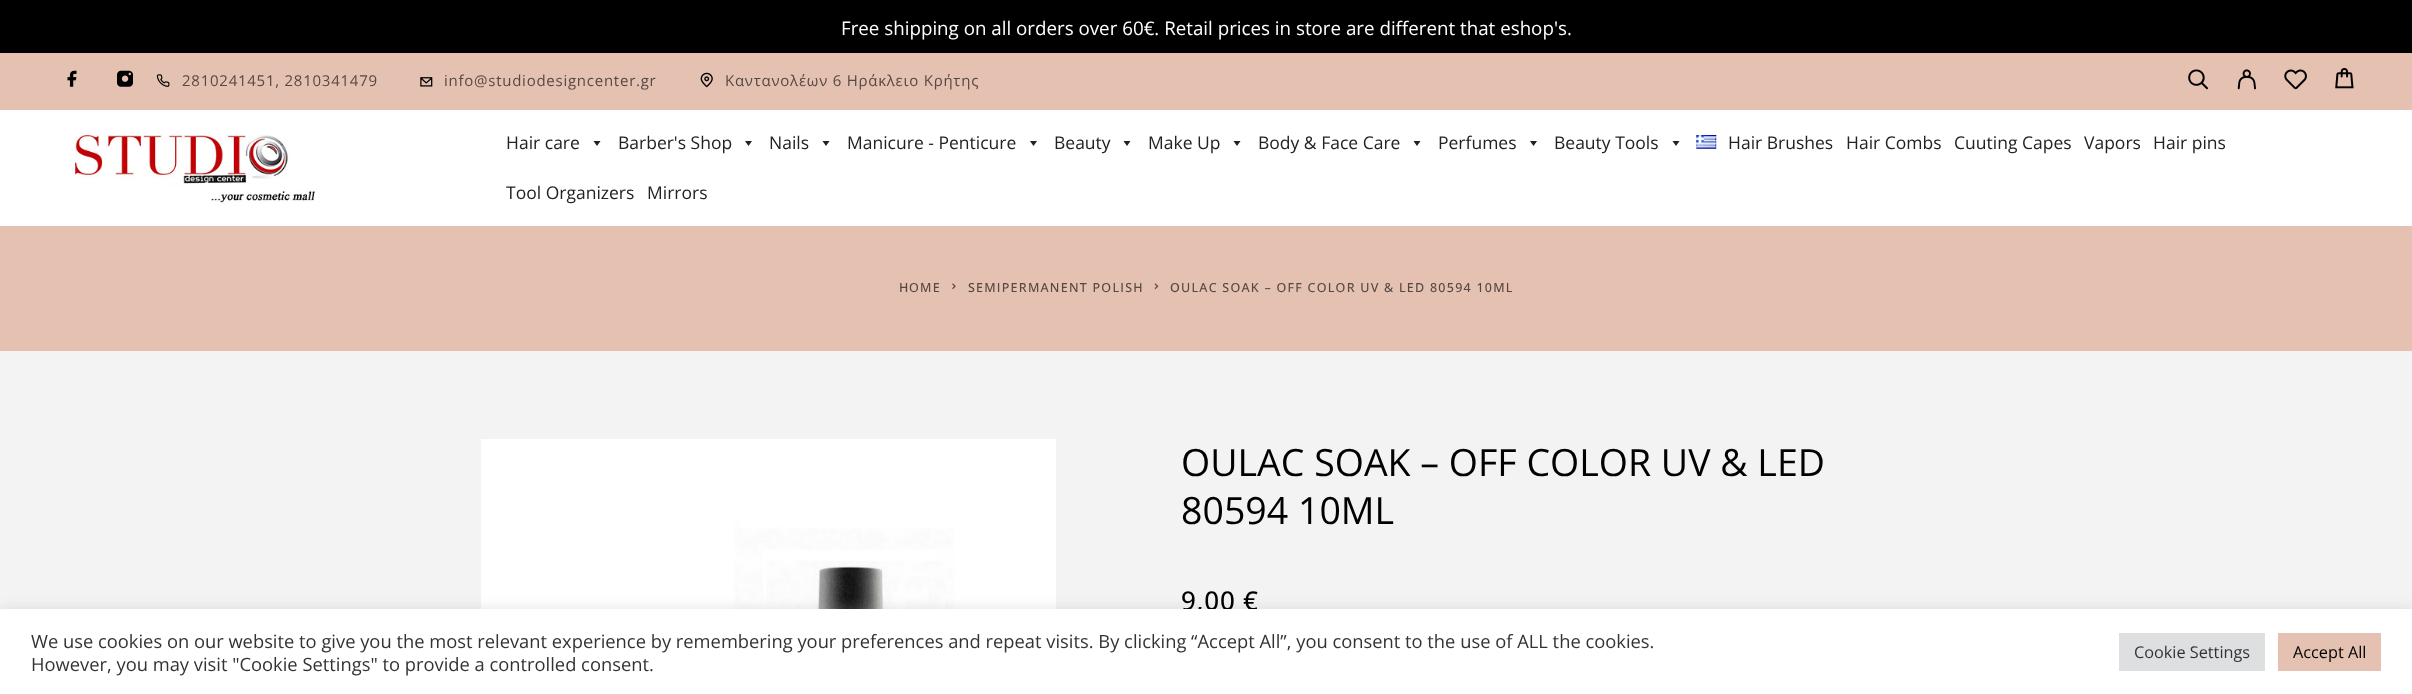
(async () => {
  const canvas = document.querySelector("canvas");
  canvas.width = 2412;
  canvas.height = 694;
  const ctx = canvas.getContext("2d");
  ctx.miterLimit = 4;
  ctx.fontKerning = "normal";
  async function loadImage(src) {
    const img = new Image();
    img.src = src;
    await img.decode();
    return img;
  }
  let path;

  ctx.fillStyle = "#f3f3f3";
  ctx.fillRect(0, 0, 2412, 694);
  ctx.fillStyle = "#000000";
  ctx.fillRect(0, 0, 2412, 53);
  ctx.fillStyle = "#e4c1b1";
  ctx.fillRect(0, 53, 2412, 57);
  ctx.drawImage(await loadImage("img/1.png"), 67, 70, 10, 17);
  ctx.drawImage(await loadImage("img/2.png"), 117, 70, 16, 17);
  ctx.drawImage(await loadImage("img/3.png"), 156, 74, 14, 13);
  ctx.drawImage(await loadImage("img/4.png"), 420, 77, 13, 10);
  ctx.drawImage(await loadImage("img/5.png"), 700, 72, 13, 16);
  ctx.drawImage(await loadImage("img/6.png"), 2188, 69, 20, 21);
  ctx.drawImage(await loadImage("img/7.png"), 2237, 69, 19, 21);
  ctx.drawImage(await loadImage("img/8.png"), 2284, 69, 23, 21);
  ctx.drawImage(await loadImage("img/9.png"), 2335, 68, 19, 21);
  ctx.fillStyle = "#ffffff";
  ctx.fillRect(0, 110, 2412, 116);
  ctx.drawImage(await loadImage("img/10.png"), 75, 135, 240, 68);
  ctx.fillStyle = "#222222";
  path = new Path2D("M600.5 141L597 146L593.5 141Z");
  ctx.fill(path);
  path = new Path2D("M752 141L748.5 146L745 141Z");
  ctx.fill(path);
  path = new Path2D("M829.5 141L826 146L822.5 141Z");
  ctx.fill(path);
  path = new Path2D("M1037 141L1033.5 146L1030 141Z");
  ctx.fill(path);
  path = new Path2D("M1130.5 141L1127 146L1123.5 141Z");
  ctx.fill(path);
  path = new Path2D("M1240.5 141L1237 146L1233.5 141Z");
  ctx.fill(path);
  path = new Path2D("M1420.5 141L1417 146L1413.5 141Z");
  ctx.fill(path);
  path = new Path2D("M1537 141L1533.5 146L1530 141Z");
  ctx.fill(path);
  path = new Path2D("M1679.5 141L1676 146L1672.5 141Z");
  ctx.fill(path);
  ctx.drawImage(await loadImage("img/11.png"), 1696, 135, 21, 14);
  ctx.fillStyle = "#e4c1b1";
  ctx.fillRect(0, 226, 2412, 125);
  ctx.drawImage(await loadImage("img/12.png"), 952, 283, 4, 6);
  ctx.drawImage(await loadImage("img/13.png"), 1154, 283, 5, 7);
  ctx.drawImage(await loadImage("img/14.png"), 481, 439, 575, 170);
  ctx.fillStyle = "rgba(172, 171, 171, 0.3)";
  ctx.filter = "blur(6px)";
  ctx.beginPath();
  ctx.rect(0, 608, 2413, 86);
  ctx.fill();
  ctx.filter = "none";
  ctx.font = "18.75px Open Sans";
  ctx.fillStyle = "#ffffff";
  ctx.fillText("Free shipping on all orders over 60€. Retail prices in store are different that eshop's.", 841, 35);
  ctx.letterSpacing = "0.75px";
  ctx.font = "15px Open Sans";
  ctx.fillStyle = "#564943";
  for (const [text, x, y] of [
    ["2810241451, 2810341479", 182, 86],
    ["info@studiodesigncenter.gr", 444, 86],
    ["Καντανολέων 6 Ηράκλειο Κρήτης", 725, 86],
  ]) {
    ctx.fillText(text, x, y);
  }
  ctx.letterSpacing = "0px";
  ctx.font = "17.5px Open Sans";
  ctx.fillStyle = "#222222";
  for (const [text, x, y] of [
    ["Hair care", 506, 149],
    ["Barber's Shop", 618, 149],
    ["Nails", 769, 149],
    ["Manicure - Penticure", 847, 149],
    ["Beauty", 1054, 149],
    ["Make Up", 1148, 149],
    ["Body & Face Care", 1258, 149],
    ["Perfumes", 1438, 149],
    ["Beauty Tools", 1554, 149],
    ["Hair Brushes", 1728, 149],
    ["Hair Combs", 1846, 149],
    ["Cuuting Capes", 1954, 149],
    ["Vapors", 2084, 149],
    ["Hair pins", 2153, 149],
    ["Tool Organizers", 506, 199],
    ["Mirrors", 647, 199],
  ]) {
    ctx.fillText(text, x, y);
  }
  ctx.letterSpacing = "1.25px";
  ctx.font = "500 12.5px Noto Sans";
  ctx.fillStyle = "#564943";
  ctx.fillText("H", 899, 292);
  ctx.font = "500 12.5px Open Sans";
  ctx.fillText("OME", 909, 292);
  ctx.font = "500 12.5px Noto Sans";
  ctx.fillText("S", 968, 292);
  ctx.font = "500 12.5px Open Sans";
  ctx.fillText("EMIPERMANENT POLISH", 976, 292);
  ctx.font = "500 12.5px Noto Sans";
  ctx.fillText("O", 1170, 292);
  ctx.font = "500 12.5px Open Sans";
  ctx.fillText("ULAC SOAK – OFF COLOR UV & LED 80594 10ML", 1181, 292);
  ctx.letterSpacing = "0px";
  ctx.font = "37.5px Open Sans";
  ctx.fillStyle = "#000000";
  ctx.fillText("OULAC SOAK – OFF COLOR UV & LED", 1181, 476);
  ctx.fillText("80594 10ML", 1181, 524);
  ctx.letterSpacing = "0.75px";
  ctx.font = "500 26px Open Sans";
  ctx.fillText("9,00 €", 1181, 610);
  ctx.fillStyle = "#ffffff";
  ctx.fillRect(0, 609, 2412, 85);
  ctx.letterSpacing = "0px";
  ctx.font = "18.33px Open Sans";
  ctx.fillStyle = "#333333";
  ctx.fillText("We use cookies on our website to give you the most relevant experience by remembering your preferences and repeat visits. By clicking “Accept All”, you consent to the use of ALL the cookies.", 31, 648);
  ctx.fillText("However, you may visit \"Cookie Settings\" to provide a controlled consent.", 31, 671);
  ctx.fillStyle = "#dedfe0";
  ctx.fillRect(2119, 633, 146, 38);
  ctx.font = "16.25px Open Sans";
  ctx.fillStyle = "#333333";
  ctx.fillText("Cookie Settings", 2134, 658);
  ctx.fillStyle = "#e4c1b1";
  ctx.fillRect(2278, 633, 103, 38);
  ctx.fillStyle = "#000000";
  ctx.fillText("Accept All", 2293, 658);
})();
